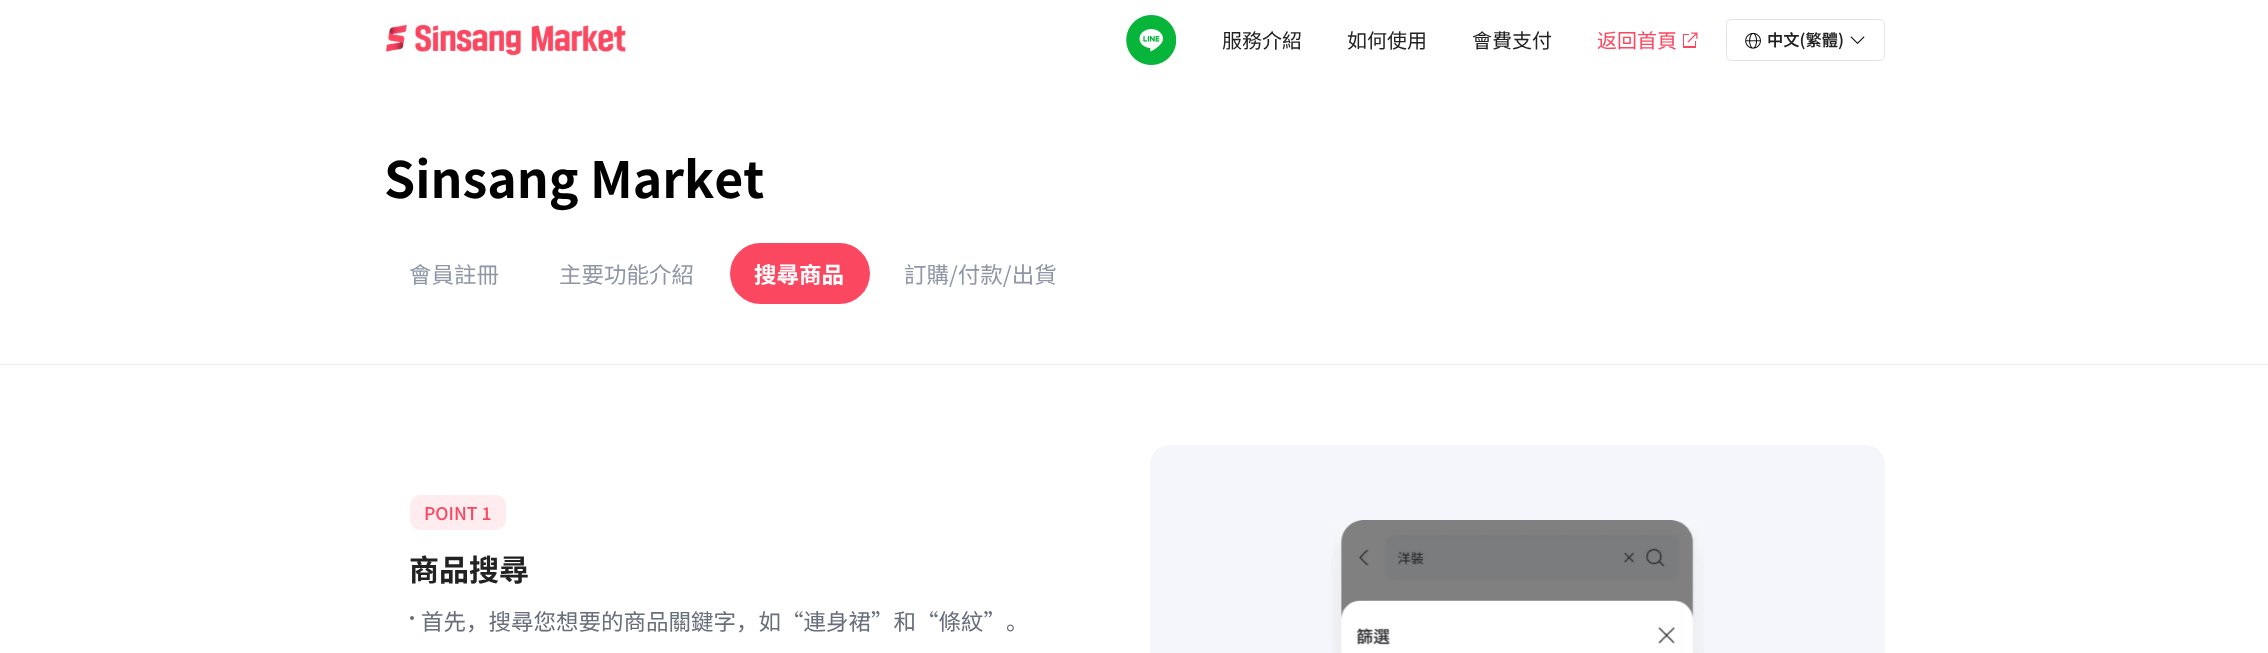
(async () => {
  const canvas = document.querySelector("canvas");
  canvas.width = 2268;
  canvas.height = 653;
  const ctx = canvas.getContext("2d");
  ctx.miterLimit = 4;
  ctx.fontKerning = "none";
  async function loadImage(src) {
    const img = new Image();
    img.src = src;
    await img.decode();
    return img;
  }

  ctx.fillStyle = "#ffffff";
  ctx.fillRect(0, 0, 2268, 653);
  ctx.drawImage(await loadImage("img/1.png"), 385, 24, 241, 32);
  ctx.drawImage(await loadImage("img/2.png"), 1126, 15, 50, 50);
  ctx.drawImage(await loadImage("img/3.png"), 1683, 32, 15, 16);
  ctx.beginPath();
  ctx.roundRect(1726.5, 19.5, 158, 41, 4.5);
  ctx.strokeStyle = "#dfe3ed";
  ctx.stroke();
  ctx.drawImage(await loadImage("img/4.png"), 1745, 32, 16, 17);
  ctx.drawImage(await loadImage("img/5.png"), 1850, 36, 15, 8);
  ctx.fillStyle = "#ebeef6";
  ctx.fillRect(0, 364, 2268, 1);
  ctx.fillStyle = "#fb4760";
  ctx.beginPath();
  ctx.roundRect(730, 243, 140, 61, 30.5);
  ctx.fill();
  ctx.fillStyle = "#feecef";
  ctx.beginPath();
  ctx.roundRect(410, 495, 96, 35, 10);
  ctx.fill();
  ctx.fillStyle = "#686e7b";
  ctx.beginPath();
  ctx.arc(412, 618, 2, 0, Math.PI * 2);
  ctx.fill();
  ctx.fillStyle = "#f5f6fb";
  ctx.beginPath();
  ctx.roundRect(1150, 445, 735, 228, 20);
  ctx.fill();
  ctx.drawImage(await loadImage("img/7.png"), 1332, 520, 372, 133);
  ctx.drawImage(await loadImage("img/6.png"), 1331, 520, 12, 125);
  ctx.drawImage(await loadImage("img/8.png"), 1343, 520, 350, 125);
  ctx.font = "100 20px 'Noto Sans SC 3'";
  ctx.fillStyle = "#222222";
  for (const [text, x, y] of [
    ["服務介紹", 1222, 48],
    ["如何使用", 1347, 48],
    ["會費支付", 1472, 48],
  ]) {
    ctx.fillText(text, x, y);
  }
  ctx.fillStyle = "#fb4760";
  ctx.fillText("返回首頁", 1597, 48);
  ctx.font = "100 16.25px 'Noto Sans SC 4'";
  ctx.fillStyle = "#222222";
  ctx.fillText("中文(繁體)", 1767, 46);
  ctx.font = "100 50px Noto Sans SC";
  ctx.fillStyle = "#000000";
  ctx.fillText("Sinsang Market", 384, 198);
  ctx.font = "100 22.5px 'Noto Sans SC 3'";
  ctx.fillStyle = "#8f97a7";
  ctx.fillText("會員註冊", 409, 283);
  ctx.fillText("主要功能介紹", 559, 283);
  ctx.font = "100 22.5px Noto Sans SC";
  ctx.fillStyle = "#ffffff";
  ctx.fillText("搜尋商品", 754, 283);
  ctx.font = "100 22.5px 'Noto Sans SC 3'";
  ctx.fillStyle = "#8f97a7";
  ctx.fillText("訂購/付款/出貨", 904, 283);
  ctx.font = "100 17.5px 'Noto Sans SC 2'";
  ctx.fillStyle = "#fb4760";
  ctx.fillText("POINT 1", 424, 520);
  ctx.font = "100 30px Noto Sans SC";
  ctx.fillStyle = "#222222";
  ctx.fillText("商品搜尋", 409, 581);
  ctx.font = "100 22.5px 'Noto Sans SC 3'";
  ctx.fillStyle = "#686e7b";
  ctx.fillText("首先，搜尋您想要的商品關鍵字，如“連身裙”和“條紋”。", 421, 630);
})();
